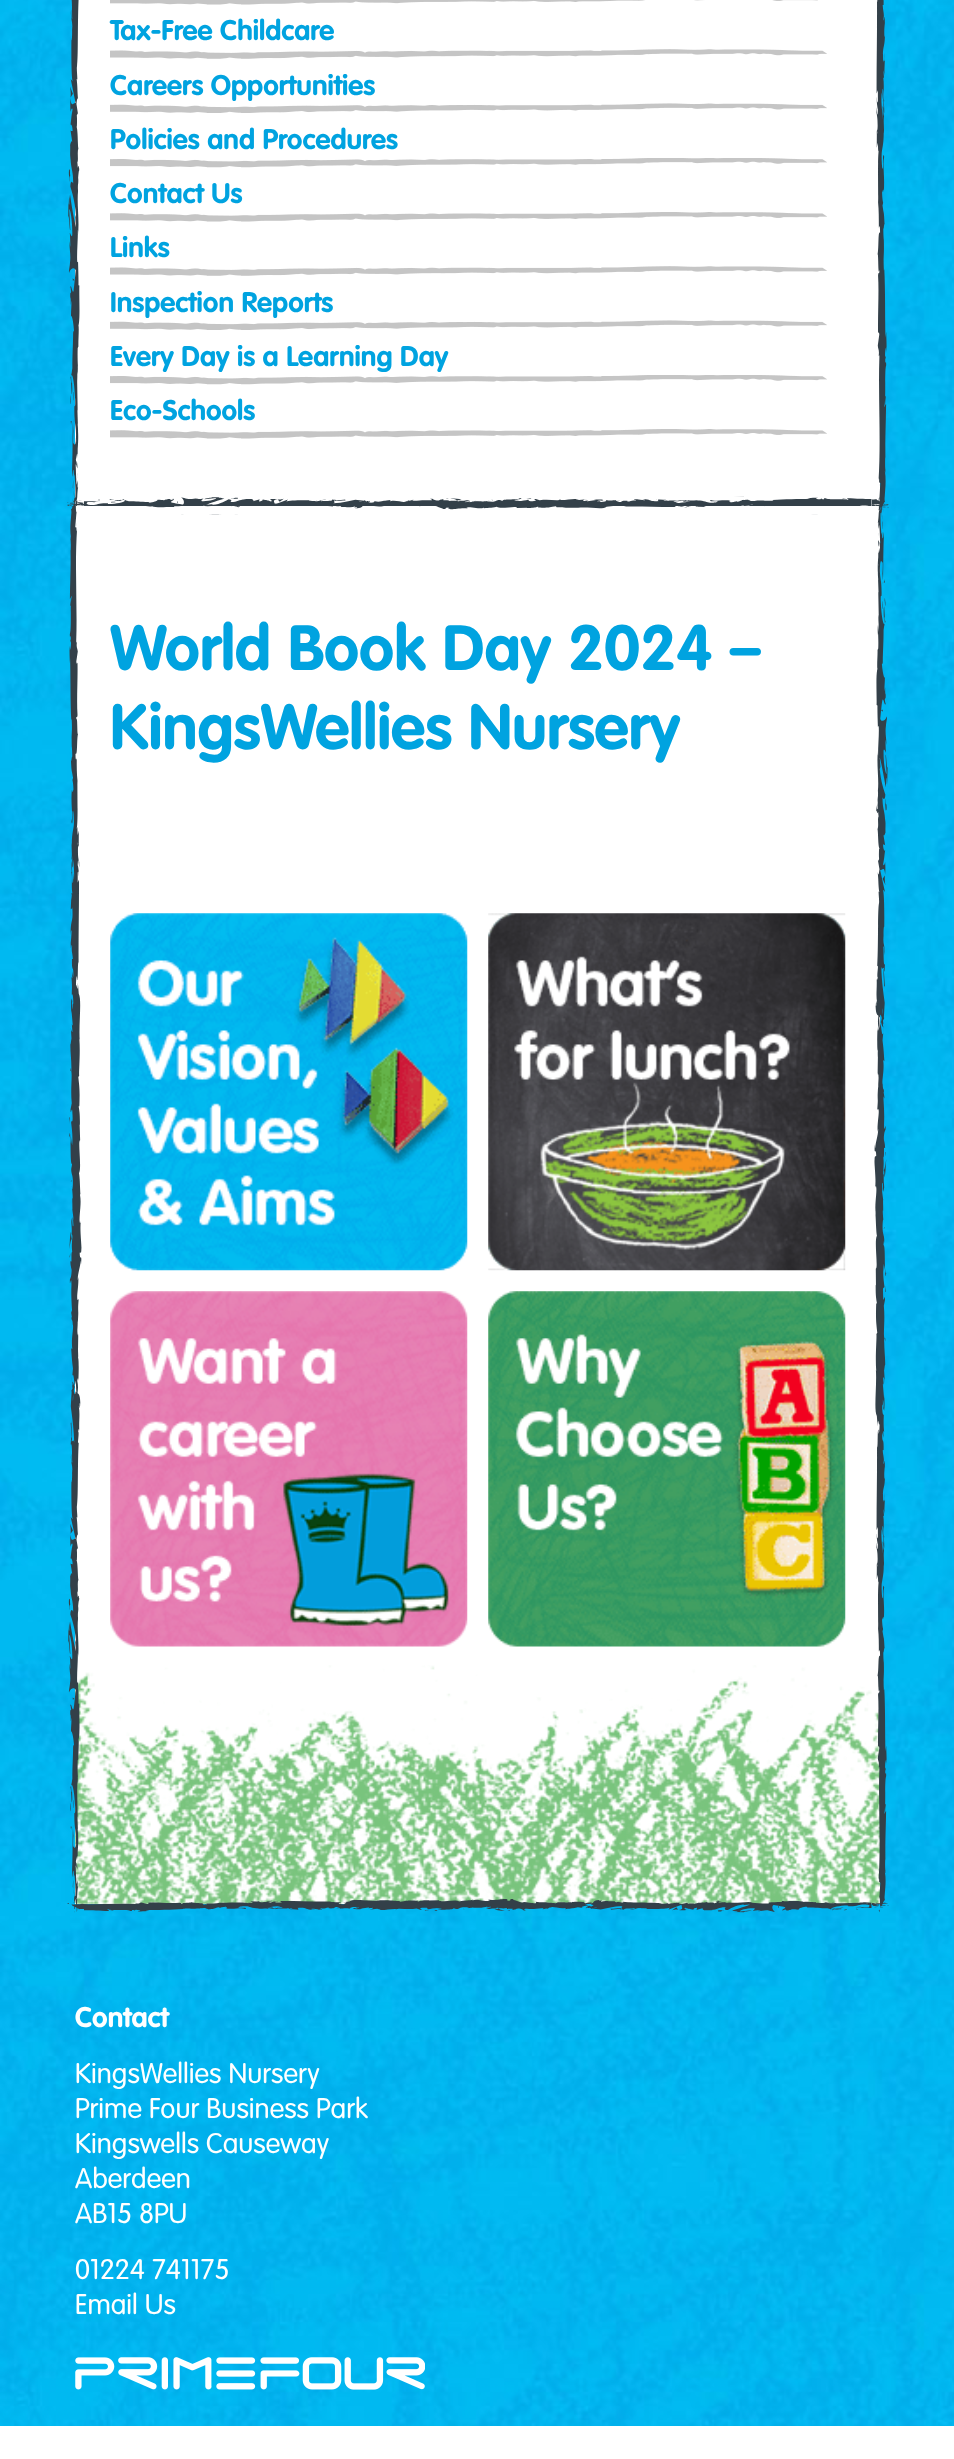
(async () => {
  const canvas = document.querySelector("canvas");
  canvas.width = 954;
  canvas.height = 2459;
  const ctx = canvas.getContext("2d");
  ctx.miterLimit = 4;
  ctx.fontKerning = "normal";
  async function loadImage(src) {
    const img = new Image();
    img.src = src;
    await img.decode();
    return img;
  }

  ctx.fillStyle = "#ffffff";
  ctx.fillRect(0, 0, 954, 2459);
  ctx.drawImage(await loadImage("img/1.png"), 0, 0, 954, 2426);
  ctx.fillRect(75, 0, 805, 506);
  ctx.drawImage(await loadImage("img/2.png"), 67, 0, 822, 510);
  ctx.drawImage(await loadImage("img/3.png"), 110, 0, 708, 5);
  ctx.drawImage(await loadImage("img/4.png"), 110, 49, 717, 10);
  ctx.drawImage(await loadImage("img/5.png"), 110, 103, 717, 10);
  ctx.drawImage(await loadImage("img/6.png"), 110, 158, 717, 10);
  ctx.drawImage(await loadImage("img/7.png"), 110, 212, 717, 10);
  ctx.drawImage(await loadImage("img/4.png"), 110, 266, 717, 10);
  ctx.drawImage(await loadImage("img/5.png"), 110, 320, 717, 10);
  ctx.drawImage(await loadImage("img/6.png"), 110, 375, 717, 10);
  ctx.drawImage(await loadImage("img/7.png"), 110, 429, 717, 10);
  ctx.fillRect(75, 506, 805, 1398);
  ctx.drawImage(await loadImage("img/9.png"), 110, 913, 358, 358);
  ctx.drawImage(await loadImage("img/10.png"), 488, 913, 358, 358);
  ctx.drawImage(await loadImage("img/11.png"), 110, 1291, 358, 356);
  ctx.drawImage(await loadImage("img/12.png"), 488, 1291, 358, 356);
  ctx.drawImage(await loadImage("img/13.png"), 75, 1665, 806, 239);
  ctx.drawImage(await loadImage("img/14.png"), 75, 2357, 350, 33);
  ctx.font = "bold 28px 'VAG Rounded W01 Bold'";
  ctx.fillStyle = "#00a3e0";
  for (const [text, x, y] of [
    ["Tax-Free Childcare", 110, 40],
    ["Careers Opportunities", 110, 95],
    ["Policies and Procedures", 110, 149],
    ["Contact Us", 110, 203],
    ["Links", 110, 257],
    ["Inspection Reports", 110, 312],
    ["Every Day is a Learning Day", 110, 366],
    ["Eco-Schools", 110, 420],
  ]) {
    ctx.fillText(text, x, y);
  }
  ctx.font = "bold 63px 'VAG Rounded W01 Bold'";
  ctx.fillText("World Book Day 2024 –", 110, 670);
  ctx.fillText("KingsWellies Nursery", 110, 749);
  ctx.drawImage(await loadImage("img/8.png"), 67, 497, 822, 1416);
  ctx.font = "bold 28px 'VAG Rounded W01 Bold'";
  ctx.fillStyle = "#ffffff";
  ctx.fillText("Contact", 75, 2027);
  ctx.font = "300 28px 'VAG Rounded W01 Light'";
  for (const [text, x, y] of [
    ["KingsWellies Nursery", 75, 2083],
    ["Prime Four Business Park", 75, 2118],
    ["Kingswells Causeway", 75, 2153],
    ["Aberdeen", 75, 2188],
    ["AB15 8PU", 75, 2223],
    ["01224 741175", 75, 2279],
    ["Email Us", 75, 2314],
  ]) {
    ctx.fillText(text, x, y);
  }
})();
